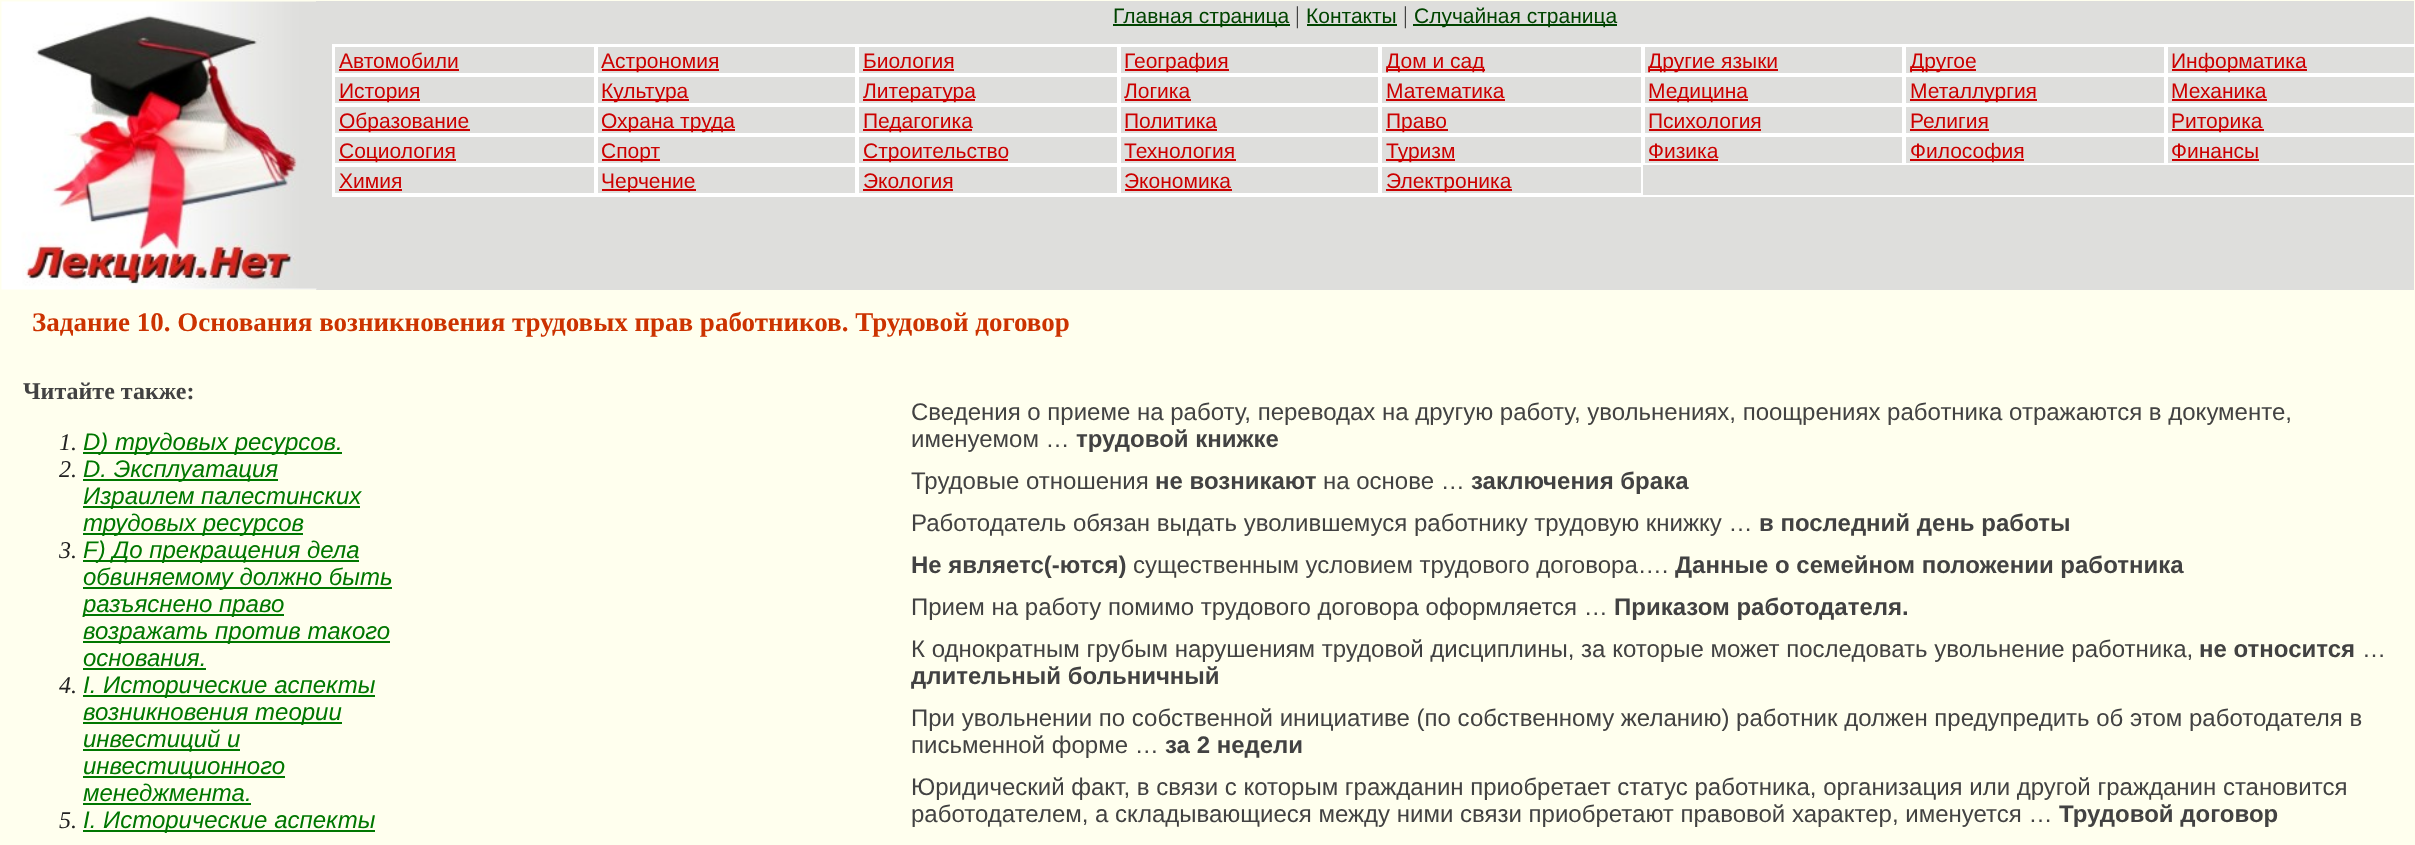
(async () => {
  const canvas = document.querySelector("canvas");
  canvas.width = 2415;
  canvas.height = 845;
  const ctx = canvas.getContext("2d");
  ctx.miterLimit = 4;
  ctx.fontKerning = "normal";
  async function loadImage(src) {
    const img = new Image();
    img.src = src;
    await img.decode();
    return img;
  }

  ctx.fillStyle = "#ffffee";
  ctx.fillRect(0, 0, 2415, 845);
  ctx.fillStyle = "#dededc";
  ctx.fillRect(316, 1, 2098, 289);
  ctx.drawImage(await loadImage("img/1.png"), 1, 1, 316, 289);
  for (const [x, y, w, h, color] of [
    [1113, 24, 177, 2, "#004400"],
    [1307, 24, 90, 2, "#004400"],
    [1413, 24, 204, 2, "#004400"],
  ]) {
    ctx.fillStyle = color;
    ctx.fillRect(x, y, w, h);
  }
  ctx.strokeStyle = "#ffffff";
  ctx.lineWidth = 2;
  ctx.strokeRect(333, 45, 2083, 151);
  ctx.strokeRect(334, 46, 261, 28);
  ctx.fillStyle = "#cc0000";
  ctx.fillRect(339, 69, 120, 2);
  ctx.strokeRect(597, 46, 259, 28);
  ctx.fillRect(602, 69, 117, 2);
  ctx.strokeRect(858, 46, 260, 28);
  ctx.fillRect(863, 69, 91, 2);
  ctx.strokeRect(1120, 46, 259, 28);
  ctx.fillRect(1125, 69, 104, 2);
  ctx.strokeRect(1381, 46, 261, 28);
  ctx.fillRect(1386, 69, 99, 2);
  ctx.strokeRect(1644, 46, 259, 28);
  ctx.fillRect(1649, 69, 129, 2);
  ctx.strokeRect(1905, 46, 260, 28);
  ctx.fillRect(1910, 69, 66, 2);
  ctx.strokeRect(2167, 46, 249, 28);
  ctx.fillRect(2172, 69, 135, 2);
  ctx.strokeRect(334, 76, 261, 28);
  ctx.fillRect(339, 99, 81, 2);
  ctx.strokeRect(597, 76, 259, 28);
  ctx.fillRect(602, 99, 87, 2);
  ctx.strokeRect(858, 76, 260, 28);
  ctx.fillRect(863, 99, 112, 2);
  ctx.strokeRect(1120, 76, 259, 28);
  ctx.fillRect(1125, 99, 66, 2);
  ctx.strokeRect(1381, 76, 261, 28);
  ctx.fillRect(1386, 99, 119, 2);
  ctx.strokeRect(1644, 76, 259, 28);
  ctx.fillRect(1649, 99, 99, 2);
  ctx.strokeRect(1905, 76, 260, 28);
  ctx.fillRect(1910, 99, 127, 2);
  ctx.strokeRect(2167, 76, 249, 28);
  ctx.fillRect(2172, 99, 95, 2);
  ctx.strokeRect(334, 106, 261, 28);
  ctx.fillRect(339, 129, 131, 2);
  ctx.strokeRect(597, 106, 259, 28);
  ctx.fillRect(602, 129, 133, 2);
  ctx.strokeRect(858, 106, 260, 28);
  ctx.fillRect(863, 129, 109, 2);
  ctx.strokeRect(1120, 106, 259, 28);
  ctx.fillRect(1125, 129, 92, 2);
  ctx.strokeRect(1381, 106, 261, 28);
  ctx.fillRect(1386, 129, 62, 2);
  ctx.strokeRect(1644, 106, 259, 28);
  ctx.fillRect(1649, 129, 112, 2);
  ctx.strokeRect(1905, 106, 260, 28);
  ctx.fillRect(1910, 129, 79, 2);
  ctx.strokeRect(2167, 106, 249, 28);
  ctx.fillRect(2172, 129, 92, 2);
  ctx.strokeRect(334, 136, 261, 28);
  ctx.fillRect(339, 159, 117, 2);
  ctx.strokeRect(597, 136, 259, 28);
  ctx.fillRect(602, 159, 58, 2);
  ctx.strokeRect(858, 136, 260, 28);
  ctx.fillRect(863, 159, 145, 2);
  ctx.strokeRect(1120, 136, 259, 28);
  ctx.fillRect(1125, 159, 111, 2);
  ctx.strokeRect(1381, 136, 261, 28);
  ctx.fillRect(1386, 159, 69, 2);
  ctx.strokeRect(1644, 136, 259, 28);
  ctx.fillRect(1649, 159, 69, 2);
  ctx.strokeRect(1905, 136, 260, 28);
  ctx.fillRect(1910, 159, 114, 2);
  ctx.strokeRect(2167, 136, 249, 28);
  ctx.fillRect(2172, 159, 87, 2);
  ctx.strokeRect(334, 166, 261, 28);
  ctx.fillRect(339, 189, 63, 2);
  ctx.strokeRect(597, 166, 259, 28);
  ctx.fillRect(602, 189, 94, 2);
  ctx.strokeRect(858, 166, 260, 28);
  ctx.fillRect(863, 189, 90, 2);
  ctx.strokeRect(1120, 166, 259, 28);
  ctx.fillRect(1125, 189, 107, 2);
  ctx.strokeRect(1381, 166, 261, 28);
  for (const [x, y, w, h, color] of [
    [1386, 189, 126, 2, "#cc0000"],
    [83, 452, 259, 2, "#007700"],
    [83, 479, 195, 2, "#007700"],
    [83, 506, 277, 2, "#007700"],
    [83, 533, 220, 2, "#007700"],
    [83, 560, 276, 2, "#007700"],
    [83, 587, 309, 2, "#007700"],
    [83, 614, 201, 2, "#007700"],
    [83, 641, 307, 2, "#007700"],
    [83, 668, 123, 2, "#007700"],
    [83, 695, 292, 2, "#007700"],
    [83, 722, 259, 2, "#007700"],
    [83, 749, 157, 2, "#007700"],
    [83, 776, 202, 2, "#007700"],
    [83, 803, 168, 2, "#007700"],
    [83, 830, 292, 2, "#007700"],
  ]) {
    ctx.fillStyle = color;
    ctx.fillRect(x, y, w, h);
  }
  ctx.font = "21px Liberation Sans";
  ctx.fillStyle = "#004400";
  ctx.fillText("Главная страница", 1113, 23);
  ctx.font = "24px Liberation Serif";
  ctx.fillStyle = "#424242";
  ctx.fillText("|", 1295, 23);
  ctx.font = "21px Liberation Sans";
  ctx.fillStyle = "#004400";
  ctx.fillText("Контакты", 1306, 23);
  ctx.font = "24px Liberation Serif";
  ctx.fillStyle = "#424242";
  ctx.fillText("|", 1403, 23);
  ctx.font = "21px Liberation Sans";
  ctx.fillStyle = "#004400";
  ctx.fillText("Случайная страница", 1414, 23);
  ctx.fillStyle = "#cc0000";
  for (const [text, x, y] of [
    ["Автомобили", 339, 68],
    ["Астрономия", 601, 68],
    ["Биология", 863, 68],
    ["География", 1124, 68],
    ["Дом и сад", 1386, 68],
    ["Другие языки", 1648, 68],
    ["Другое", 1910, 68],
    ["Информатика", 2171, 68],
    ["История", 339, 98],
    ["Культура", 601, 98],
    ["Литература", 863, 98],
    ["Логика", 1124, 98],
    ["Математика", 1386, 98],
    ["Медицина", 1648, 98],
    ["Металлургия", 1910, 98],
    ["Механика", 2171, 98],
    ["Образование", 339, 128],
    ["Охрана труда", 601, 128],
    ["Педагогика", 863, 128],
    ["Политика", 1124, 128],
    ["Право", 1386, 128],
    ["Психология", 1648, 128],
    ["Религия", 1910, 128],
    ["Риторика", 2171, 128],
    ["Социология", 339, 158],
    ["Спорт", 601, 158],
    ["Строительство", 863, 158],
    ["Технология", 1124, 158],
    ["Туризм", 1386, 158],
    ["Физика", 1648, 158],
    ["Философия", 1910, 158],
    ["Финансы", 2171, 158],
    ["Химия", 339, 188],
    ["Черчение", 601, 188],
    ["Экология", 863, 188],
    ["Экономика", 1124, 188],
    ["Электроника", 1386, 188],
  ]) {
    ctx.fillText(text, x, y);
  }
  ctx.font = "bold 27px Liberation Serif";
  ctx.fillStyle = "#cc3300";
  ctx.fillText("Задание 10. Основания возникновения трудовых прав работников. Трудовой договор", 32, 331);
  ctx.font = "bold 24px Liberation Serif";
  ctx.fillStyle = "#424242";
  ctx.fillText("Читайте также:", 23, 399);
  ctx.font = "italic 24px Liberation Serif";
  ctx.fillStyle = "#222222";
  ctx.fillText("1.", 59, 450);
  ctx.font = "italic 24px Liberation Sans";
  ctx.fillStyle = "#007700";
  ctx.fillText("D) трудовых ресурсов.", 83, 450);
  ctx.font = "italic 24px Liberation Serif";
  ctx.fillStyle = "#222222";
  ctx.fillText("2.", 59, 477);
  ctx.font = "italic 24px Liberation Sans";
  ctx.fillStyle = "#007700";
  for (const [text, x, y] of [
    ["D. Эксплуатация", 83, 477],
    ["Израилем палестинских", 83, 504],
    ["трудовых ресурсов", 83, 531],
  ]) {
    ctx.fillText(text, x, y);
  }
  ctx.font = "italic 24px Liberation Serif";
  ctx.fillStyle = "#222222";
  ctx.fillText("3.", 59, 558);
  ctx.font = "italic 24px Liberation Sans";
  ctx.fillStyle = "#007700";
  for (const [text, x, y] of [
    ["F) До прекращения дела", 83, 558],
    ["обвиняемому должно быть", 83, 585],
    ["разъяснено право", 83, 612],
    ["возражать против такого", 83, 639],
    ["основания.", 83, 666],
  ]) {
    ctx.fillText(text, x, y);
  }
  ctx.font = "italic 24px Liberation Serif";
  ctx.fillStyle = "#222222";
  ctx.fillText("4.", 59, 693);
  ctx.font = "italic 24px Liberation Sans";
  ctx.fillStyle = "#007700";
  for (const [text, x, y] of [
    ["I. Исторические аспекты", 83, 693],
    ["возникновения теории", 83, 720],
    ["инвестиций и", 83, 747],
    ["инвестиционного", 83, 774],
    ["менеджмента.", 83, 801],
  ]) {
    ctx.fillText(text, x, y);
  }
  ctx.font = "italic 24px Liberation Serif";
  ctx.fillStyle = "#222222";
  ctx.fillText("5.", 59, 828);
  ctx.font = "italic 24px Liberation Sans";
  ctx.fillStyle = "#007700";
  ctx.fillText("I. Исторические аспекты", 83, 828);
  ctx.font = "24px Liberation Sans";
  ctx.fillStyle = "#424242";
  ctx.fillText("Сведения о приеме на работу, переводах на другую работу, увольнениях, поощрениях работника отражаются в документе,", 911, 420);
  ctx.fillText("именуемом …", 911, 447);
  ctx.font = "bold 24px Liberation Sans";
  ctx.fillText("трудовой книжке", 1076, 447);
  ctx.font = "24px Liberation Sans";
  ctx.fillText("Трудовые отношения", 911, 489);
  ctx.font = "bold 24px Liberation Sans";
  ctx.fillText("не возникают", 1155, 489);
  ctx.font = "24px Liberation Sans";
  ctx.fillText("на основе …", 1323, 489);
  ctx.font = "bold 24px Liberation Sans";
  ctx.fillText("заключения брака", 1471, 489);
  ctx.font = "24px Liberation Sans";
  ctx.fillText("Работодатель обязан выдать уволившемуся работнику трудовую книжку …", 911, 531);
  ctx.font = "bold 24px Liberation Sans";
  ctx.fillText("в последний день работы", 1759, 531);
  ctx.fillText("Не являетс(-ются)", 911, 573);
  ctx.font = "24px Liberation Sans";
  ctx.fillText("существенным условием трудового договора….", 1133, 573);
  ctx.font = "bold 24px Liberation Sans";
  ctx.fillText("Данные о семейном положении работника", 1675, 573);
  ctx.font = "24px Liberation Sans";
  ctx.fillText("Прием на работу помимо трудового договора оформляется …", 911, 615);
  ctx.font = "bold 24px Liberation Sans";
  ctx.fillText("Приказом работодателя.", 1614, 615);
  ctx.font = "24px Liberation Sans";
  ctx.fillText("К однократным грубым нарушениям трудовой дисциплины, за которые может последовать увольнение работника,", 911, 657);
  ctx.font = "bold 24px Liberation Sans";
  ctx.fillText("не относится", 2199, 657);
  ctx.font = "24px Liberation Sans";
  ctx.fillText("…", 2362, 657);
  ctx.font = "bold 24px Liberation Sans";
  ctx.fillText("длительный больничный", 911, 684);
  ctx.font = "24px Liberation Sans";
  ctx.fillText("При увольнении по собственной инициативе (по собственному желанию) работник должен предупредить об этом работодателя в", 911, 726);
  ctx.fillText("письменной форме …", 911, 753);
  ctx.font = "bold 24px Liberation Sans";
  ctx.fillText("за 2 недели", 1165, 753);
  ctx.font = "24px Liberation Sans";
  ctx.fillText("Юридический факт, в связи с которым гражданин приобретает статус работника, организация или другой гражданин становится", 911, 795);
  ctx.fillText("работодателем, а складывающиеся между ними связи приобретают правовой характер, именуется …", 911, 822);
  ctx.font = "bold 24px Liberation Sans";
  ctx.fillText("Трудовой договор", 2059, 822);
})();
